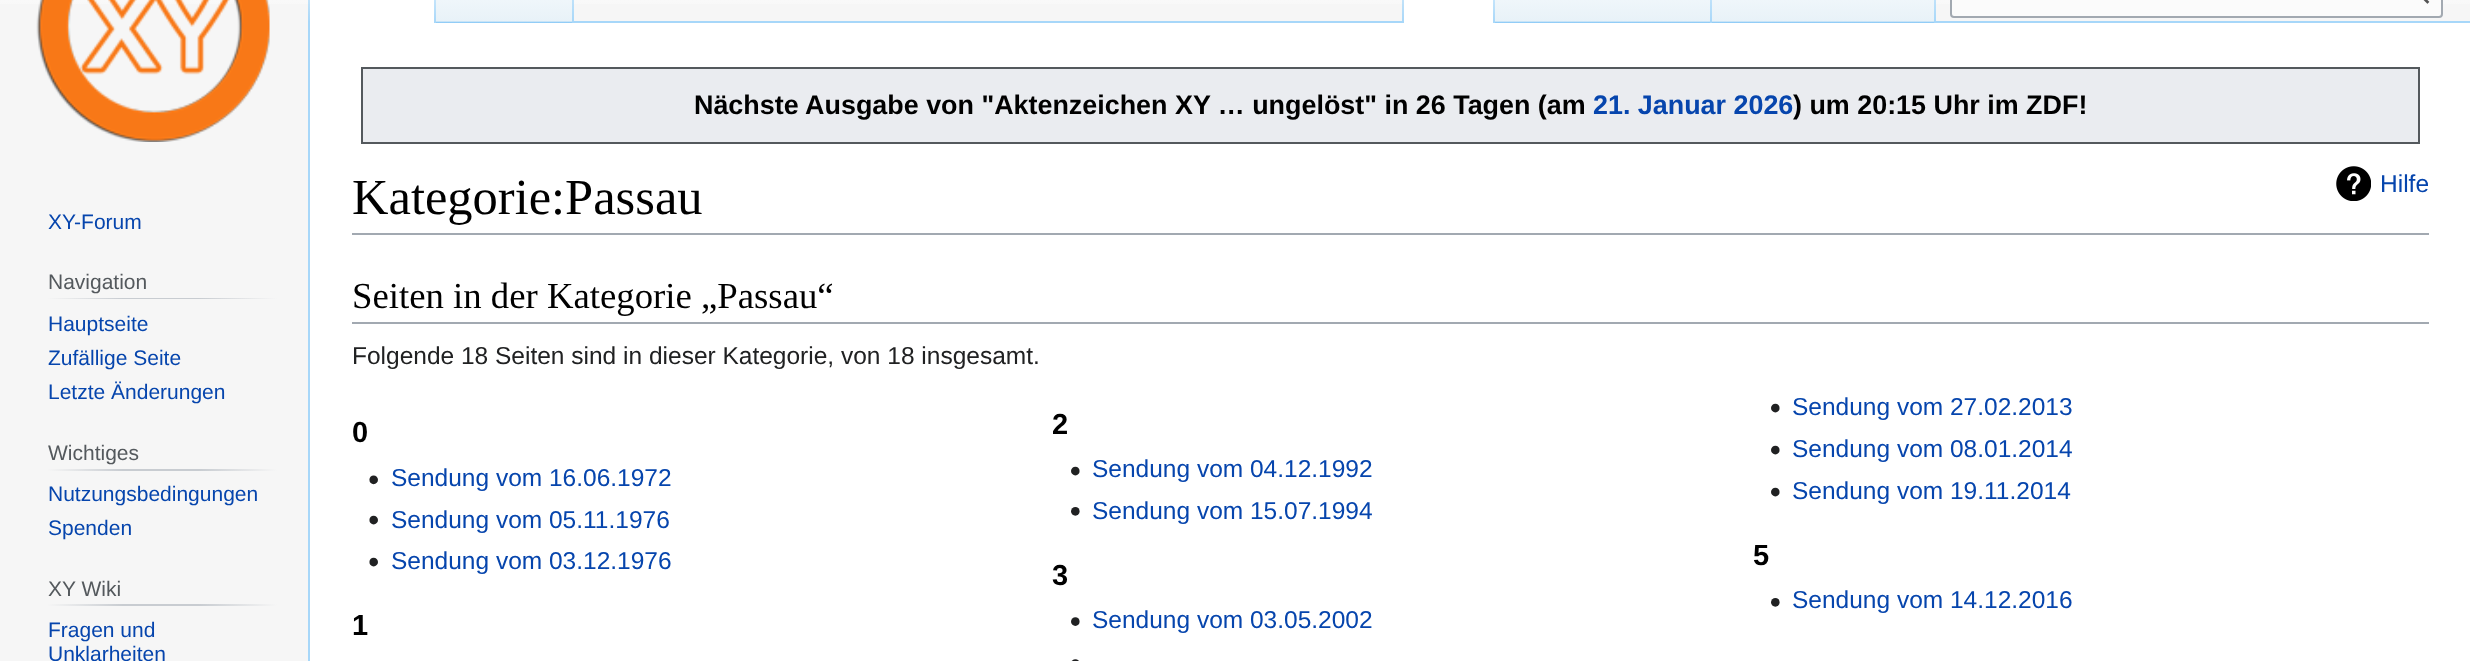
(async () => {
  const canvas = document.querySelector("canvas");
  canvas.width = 2470;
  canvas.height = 661;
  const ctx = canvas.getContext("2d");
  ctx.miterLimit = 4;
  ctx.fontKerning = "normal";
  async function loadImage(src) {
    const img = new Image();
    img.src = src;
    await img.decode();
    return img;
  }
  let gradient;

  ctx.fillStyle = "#f6f6f6";
  ctx.fillRect(0, 0, 2470, 661);
  gradient = ctx.createLinearGradient(1236, -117, 1236, 23);
  gradient.addColorStop(0.5, "#ffffff");
  gradient.addColorStop(1, "#f6f6f6");
  ctx.fillStyle = gradient;
  ctx.fillRect(0, 0, 2470, 4);
  ctx.fillStyle = "#a7d7f9";
  ctx.fillRect(308, 21, 2, 640);
  gradient = ctx.createLinearGradient(309, -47, 309, 23);
  gradient.addColorStop(0, "rgba(167, 215, 249, 0)");
  gradient.addColorStop(1, "#a7d7f9");
  ctx.fillStyle = gradient;
  ctx.fillRect(308, 0, 2, 23);
  ctx.fillStyle = "#ffffff";
  ctx.fillRect(310, 0, 124, 23);
  gradient = ctx.createLinearGradient(435, -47, 435, 23);
  gradient.addColorStop(0, "#ffffff");
  gradient.addColorStop(1, "#a7d7f9");
  ctx.fillStyle = gradient;
  ctx.fillRect(434, 0, 2, 23);
  gradient = ctx.createLinearGradient(505, 23, 505, -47);
  gradient.addColorStop(0, "#77c1f6");
  gradient.addColorStop(0.03, "#e8f2f8");
  gradient.addColorStop(1, "#ffffff");
  ctx.fillStyle = gradient;
  ctx.fillRect(436, 0, 138, 23);
  gradient = ctx.createLinearGradient(573, -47, 573, 23);
  gradient.addColorStop(0, "rgba(167, 215, 249, 0)");
  gradient.addColorStop(1, "#a7d7f9");
  ctx.fillStyle = gradient;
  ctx.fillRect(572, 0, 2, 23);
  ctx.fillStyle = "#a7d7f9";
  ctx.fillRect(574, 21, 1896, 2);
  gradient = ctx.createLinearGradient(1403, -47, 1403, 23);
  gradient.addColorStop(0, "rgba(167, 215, 249, 0)");
  gradient.addColorStop(1, "#a7d7f9");
  ctx.fillStyle = gradient;
  ctx.fillRect(1402, 0, 2, 23);
  ctx.fillStyle = "#ffffff";
  ctx.fillRect(1404, 0, 89, 23);
  gradient = ctx.createLinearGradient(1494, -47, 1494, 23);
  gradient.addColorStop(0, "#ffffff");
  gradient.addColorStop(1, "#a7d7f9");
  ctx.fillStyle = gradient;
  ctx.fillRect(1493, 0, 2, 23);
  gradient = ctx.createLinearGradient(1603, 23, 1603, -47);
  gradient.addColorStop(0, "#77c1f6");
  gradient.addColorStop(0.03, "#e8f2f8");
  gradient.addColorStop(1, "#ffffff");
  ctx.fillStyle = gradient;
  ctx.fillRect(1495, 0, 217, 23);
  gradient = ctx.createLinearGradient(1711, -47, 1711, 23);
  gradient.addColorStop(0, "rgba(167, 215, 249, 0)");
  gradient.addColorStop(1, "#a7d7f9");
  ctx.fillStyle = gradient;
  ctx.fillRect(1710, 0, 2, 23);
  gradient = ctx.createLinearGradient(1824, 23, 1824, -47);
  gradient.addColorStop(0, "#77c1f6");
  gradient.addColorStop(0.03, "#e8f2f8");
  gradient.addColorStop(1, "#ffffff");
  ctx.fillStyle = gradient;
  ctx.fillRect(1712, 0, 224, 23);
  gradient = ctx.createLinearGradient(1935, -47, 1935, 23);
  gradient.addColorStop(0, "rgba(167, 215, 249, 0)");
  gradient.addColorStop(1, "#a7d7f9");
  ctx.fillStyle = gradient;
  ctx.fillRect(1934, 0, 2, 23);
  ctx.fillStyle = "#fbfbfb";
  ctx.beginPath();
  ctx.roundRect(1951, -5, 491, 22, 3);
  ctx.fill();
  ctx.strokeStyle = "#a2a9b1";
  ctx.lineWidth = 2;
  ctx.stroke();
  ctx.drawImage(await loadImage("img/1.png"), 2423, 0, 7, 4);
  ctx.drawImage(await loadImage("img/2.png"), 36, 0, 234, 142);
  gradient = ctx.createLinearGradient(47, 298, 277, 298);
  gradient.addColorStop(0, "#f6f6f6");
  gradient.addColorStop(0.33, "#c8ccd1");
  gradient.addColorStop(0.66, "#c8ccd1");
  gradient.addColorStop(1, "#f6f6f6");
  ctx.fillStyle = gradient;
  ctx.fillRect(47, 298, 230, 1);
  gradient = ctx.createLinearGradient(47, 470, 277, 470);
  gradient.addColorStop(0, "#f6f6f6");
  gradient.addColorStop(0.33, "#c8ccd1");
  gradient.addColorStop(0.66, "#c8ccd1");
  gradient.addColorStop(1, "#f6f6f6");
  ctx.fillStyle = gradient;
  ctx.fillRect(47, 469, 230, 2);
  gradient = ctx.createLinearGradient(47, 605, 277, 605);
  gradient.addColorStop(0, "#f6f6f6");
  gradient.addColorStop(0.33, "#c8ccd1");
  gradient.addColorStop(0.66, "#c8ccd1");
  gradient.addColorStop(1, "#f6f6f6");
  ctx.fillStyle = gradient;
  ctx.fillRect(47, 604, 230, 2);
  ctx.fillStyle = "#ffffff";
  ctx.fillRect(310, 23, 2160, 638);
  ctx.fillStyle = "#eaecf0";
  ctx.beginPath();
  ctx.rect(362, 68, 2057, 75);
  ctx.fill();
  ctx.strokeStyle = "#54595d";
  ctx.stroke();
  ctx.fillStyle = "#a2a9b1";
  ctx.fillRect(352, 233, 2077, 2);
  ctx.drawImage(await loadImage("img/3.png"), 2336, 166, 35, 35);
  ctx.fillRect(352, 322, 2077, 2);
  ctx.drawImage(await loadImage("img/4.png"), 369, 475, 9, 10);
  ctx.drawImage(await loadImage("img/5.png"), 369, 515, 9, 10);
  ctx.drawImage(await loadImage("img/5.png"), 369, 557, 9, 10);
  ctx.drawImage(await loadImage("img/6.png"), 1071, 466, 9, 10);
  ctx.drawImage(await loadImage("img/7.png"), 1071, 507, 9, 9);
  ctx.drawImage(await loadImage("img/6.png"), 1771, 403, 9, 10);
  ctx.drawImage(await loadImage("img/6.png"), 1771, 445, 9, 10);
  ctx.drawImage(await loadImage("img/6.png"), 1771, 487, 9, 10);
  ctx.drawImage(await loadImage("img/8.png"), 1071, 617, 9, 9);
  ctx.drawImage(await loadImage("img/9.png"), 1071, 659, 8, 2);
  ctx.drawImage(await loadImage("img/10.png"), 1771, 598, 9, 9);
  ctx.font = "21px Liberation Sans";
  ctx.fillStyle = "#0645ad";
  ctx.fillText("XY-Forum", 48, 229);
  ctx.fillStyle = "#54595d";
  ctx.fillText("Navigation", 48, 289);
  ctx.fillStyle = "#0645ad";
  for (const [text, x, y] of [
    ["Hauptseite", 48, 331],
    ["Zufällige Seite", 48, 365],
    ["Letzte Änderungen", 48, 399],
  ]) {
    ctx.fillText(text, x, y);
  }
  ctx.fillStyle = "#54595d";
  ctx.fillText("Wichtiges", 48, 460);
  ctx.fillStyle = "#0645ad";
  ctx.fillText("Nutzungsbedingungen", 48, 501);
  ctx.fillText("Spenden", 48, 535);
  ctx.fillStyle = "#54595d";
  ctx.fillText("XY Wiki", 48, 596);
  ctx.fillStyle = "#0645ad";
  ctx.fillText("Fragen und", 48, 637);
  ctx.fillText("Unklarheiten", 48, 661);
  ctx.font = "bold 26.9px Liberation Sans";
  ctx.fillStyle = "#000000";
  ctx.fillText("Nächste Ausgabe von \"Aktenzeichen XY … ungelöst\" in 26 Tagen (am", 694, 114);
  ctx.fillStyle = "#0645ad";
  ctx.fillText("21. Januar 2026", 1593, 114);
  ctx.fillStyle = "#000000";
  ctx.fillText(") um 20:15 Uhr im ZDF!", 1793, 114);
  ctx.font = "50.5px Liberation Serif";
  ctx.fillText("Kategorie:Passau", 352, 214);
  ctx.font = "24.5px Liberation Sans";
  ctx.fillStyle = "#0645ad";
  ctx.fillText("Hilfe", 2380, 192);
  ctx.font = "36.75px Liberation Serif";
  ctx.fillStyle = "#000000";
  ctx.fillText("Seiten in der Kategorie „Passau“", 352, 308);
  ctx.font = "24.5px Liberation Sans";
  ctx.fillStyle = "#202122";
  ctx.fillText("Folgende 18 Seiten sind in dieser Kategorie, von 18 insgesamt.", 352, 364);
  ctx.font = "bold 29px Liberation Sans";
  ctx.fillStyle = "#000000";
  ctx.fillText("0", 352, 442);
  ctx.font = "24.5px Liberation Sans";
  ctx.fillStyle = "#0645ad";
  for (const [text, x, y] of [
    ["Sendung vom 16.06.1972", 391, 486],
    ["Sendung vom 05.11.1976", 391, 528],
    ["Sendung vom 03.12.1976", 391, 569],
  ]) {
    ctx.fillText(text, x, y);
  }
  ctx.font = "bold 29px Liberation Sans";
  ctx.fillStyle = "#000000";
  ctx.fillText("2", 1052, 434);
  ctx.font = "24.5px Liberation Sans";
  ctx.fillStyle = "#0645ad";
  for (const [text, x, y] of [
    ["Sendung vom 04.12.1992", 1092, 477],
    ["Sendung vom 15.07.1994", 1092, 519],
    ["Sendung vom 27.02.2013", 1792, 415],
    ["Sendung vom 08.01.2014", 1792, 457],
    ["Sendung vom 19.11.2014", 1792, 499],
  ]) {
    ctx.fillText(text, x, y);
  }
  ctx.font = "bold 29px Liberation Sans";
  ctx.fillStyle = "#000000";
  ctx.fillText("1", 352, 635);
  ctx.fillText("3", 1052, 585);
  ctx.font = "24.5px Liberation Sans";
  ctx.fillStyle = "#0645ad";
  ctx.fillText("Sendung vom 03.05.2002", 1092, 628);
  ctx.font = "bold 29px Liberation Sans";
  ctx.fillStyle = "#000000";
  ctx.fillText("5", 1753, 565);
  ctx.font = "24.5px Liberation Sans";
  ctx.fillStyle = "#0645ad";
  ctx.fillText("Sendung vom 14.12.2016", 1792, 608);
})();
